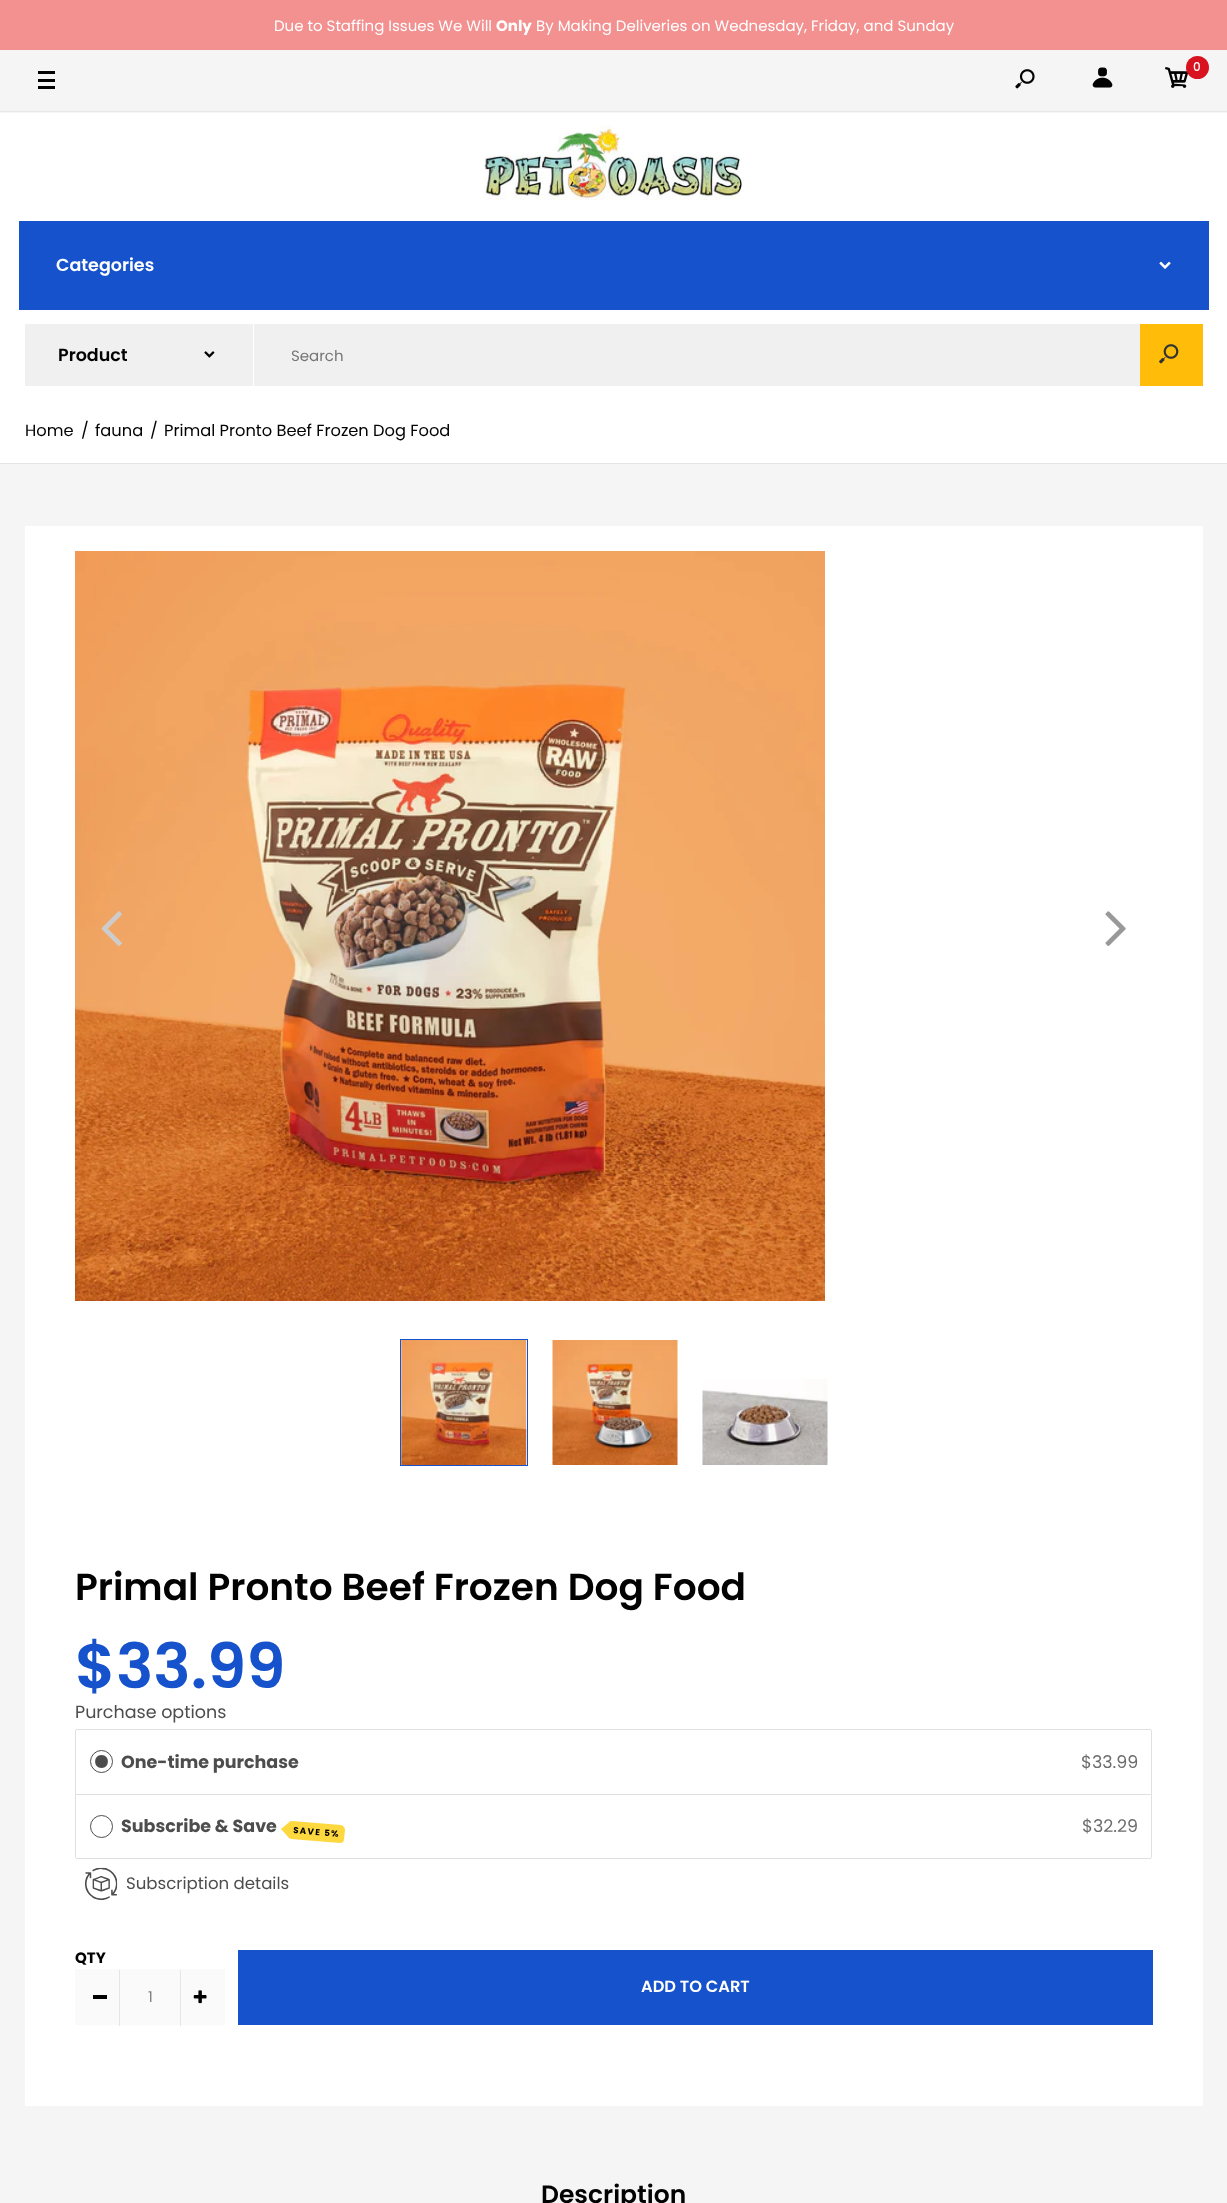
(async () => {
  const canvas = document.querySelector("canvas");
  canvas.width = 1227;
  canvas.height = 2203;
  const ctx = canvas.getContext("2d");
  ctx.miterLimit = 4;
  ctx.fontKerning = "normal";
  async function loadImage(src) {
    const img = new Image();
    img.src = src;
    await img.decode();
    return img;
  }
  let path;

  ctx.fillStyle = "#f5f5f5";
  ctx.fillRect(0, 0, 1227, 2203);
  ctx.fillStyle = "#f39090";
  ctx.fillRect(0, 0, 1227, 50);
  ctx.fillStyle = "#e7e7e7";
  ctx.fillRect(0, 111, 1227, 1);
  ctx.drawImage(await loadImage("img/1.png"), 1165, 67, 23, 21);
  ctx.fillStyle = "#d9121f";
  ctx.beginPath();
  ctx.arc(1197.5, 67.5, 11.5, 0, Math.PI * 2);
  ctx.fill();
  for (const [x, y, w, h, color] of [
    [38, 79, 17, 3, "#020202"],
    [38, 71, 17, 3, "#020202"],
    [38, 86, 17, 3, "#020202"],
  ]) {
    ctx.fillStyle = color;
    ctx.fillRect(x, y, w, h);
  }
  ctx.drawImage(await loadImage("img/2.png"), 1015, 69, 20, 20);
  ctx.drawImage(await loadImage("img/3.png"), 1092, 67, 21, 21);
  ctx.fillStyle = "#ffffff";
  ctx.fillRect(0, 113, 1227, 287);
  ctx.drawImage(await loadImage("img/4.png"), 484, 125, 260, 75);
  ctx.fillStyle = "#1652cb";
  ctx.fillRect(19, 221, 1190, 89);
  ctx.drawImage(await loadImage("img/5.png"), 1159, 261, 12, 8);
  ctx.fillStyle = "#f0f0f0";
  ctx.fillRect(25, 324, 1115, 62);
  ctx.fillStyle = "#ffffff";
  ctx.fillRect(253, 324, 1, 62);
  ctx.drawImage(await loadImage("img/6.png"), 204, 351, 11, 7);
  ctx.fillStyle = "#ffbc09";
  ctx.fillRect(1140, 324, 63, 62);
  ctx.drawImage(await loadImage("img/7.png"), 1159, 344, 20, 20);
  for (const [x, y, w, h, color] of [
    [0, 400, 1227, 63, "#ffffff"],
    [0, 463, 1227, 1, "#e5e5e5"],
    [25, 526, 1178, 1580, "#ffffff"],
  ]) {
    ctx.fillStyle = color;
    ctx.fillRect(x, y, w, h);
  }
  ctx.drawImage(await loadImage("img/8.png"), 75, 551, 750, 750);
  ctx.drawImage(await loadImage("img/9.png"), 101, 911, 21, 35);
  ctx.drawImage(await loadImage("img/10.png"), 1105, 911, 21, 35);
  ctx.strokeStyle = "#1652cb";
  ctx.strokeRect(400.5, 1339.5, 127, 126);
  ctx.drawImage(await loadImage("img/11.png"), 401, 1340, 126, 125);
  ctx.drawImage(await loadImage("img/12.png"), 552, 1340, 126, 125);
  ctx.drawImage(await loadImage("img/13.png"), 702, 1379, 126, 86);
  for (const [x, y, w, h, color] of [
    [76, 1729, 1075, 1, "#e0e0e0"],
    [1151, 1730, 1, 128, "#e0e0e0"],
    [75, 1730, 1, 128, "#e0e0e0"],
    [76, 1794, 1075, 1, "#e0e0e0"],
  ]) {
    ctx.fillStyle = color;
    ctx.fillRect(x, y, w, h);
  }
  ctx.beginPath();
  ctx.arc(101.5, 1761.5, 11, 0, Math.PI * 2);
  ctx.strokeStyle = "#4d4d4d";
  ctx.stroke();
  ctx.fillStyle = "#4d4d4d";
  path = new Path2D("M101.5 1755C93 1755 93 1768 101.5 1768C110 1768 110 1755 101.5 1755Z");
  ctx.fill(path);
  ctx.fillStyle = "#e0e0e0";
  ctx.fillRect(76, 1858, 1075, 1);
  ctx.beginPath();
  ctx.arc(101.5, 1826.5, 11, 0, Math.PI * 2);
  ctx.stroke();
  ctx.fillStyle = "#fed83f";
  path = new Path2D("M292 1821L341 1825C343 1826 345 1827 345 1830L344 1839C344 1842 342 1843 340 1843L291 1839C289 1838 288 1837 288 1836L289 1823C290 1822 291 1821 292 1821Z");
  ctx.fill(path);
  path = new Path2D("M281 1829L289.5 1838.5L291 1821H290.5Z");
  ctx.fill(path);
  ctx.drawImage(await loadImage("img/14.png"), 85, 1867, 33, 33);
  for (const [x, y, w, h, color] of [
    [75, 1969, 150, 56, "#fafafa"],
    [119, 1970, 1, 56, "#e5e5e5"],
    [93, 1995, 14, 4, "#020202"],
    [180, 1970, 1, 56, "#e5e5e5"],
  ]) {
    ctx.fillStyle = color;
    ctx.fillRect(x, y, w, h);
  }
  ctx.drawImage(await loadImage("img/15.png"), 193, 1990, 14, 14);
  ctx.fillStyle = "#1652cb";
  ctx.fillRect(238, 1950, 915, 75);
  ctx.font = "15px Poppins";
  ctx.fillStyle = "#ffffff";
  ctx.fillText("Due to Staffing Issues We Will", 274, 31);
  ctx.font = "bold 15px Poppins";
  ctx.fillText("Only", 496, 31);
  ctx.font = "15px Poppins";
  ctx.fillText("By Making Deliveries on Wednesday, Friday, and Sunday", 536, 31);
  ctx.font = "500 12px Poppins";
  ctx.fillText("0", 1193, 71);
  ctx.font = "600 17.5px Poppins";
  ctx.fillText("Categories", 56, 271);
  ctx.fillStyle = "#020202";
  ctx.fillText("Product", 58, 361);
  ctx.font = "15px Poppins";
  ctx.fillStyle = "#757575";
  ctx.fillText("Search", 291, 361);
  ctx.font = "16.25px Poppins";
  ctx.fillStyle = "#020202";
  for (const [text, x, y] of [
    ["Home", 25, 436],
    ["/", 81, 436],
    ["fauna", 95, 436],
    ["/", 150, 436],
    ["Primal Pronto Beef Frozen Dog Food", 164, 436],
  ]) {
    ctx.fillText(text, x, y);
  }
  ctx.font = "600 37.5px Poppins";
  ctx.fillText("Primal Pronto Beef Frozen Dog Food", 75, 1600);
  ctx.font = "600 62.5px Poppins";
  ctx.fillStyle = "#1652cb";
  ctx.fillText("$33.99", 75, 1688);
  ctx.font = "17.5px Poppins";
  ctx.fillStyle = "#4d4d4d";
  ctx.fillText("Purchase options", 75, 1718);
  ctx.font = "bold 17.5px Poppins";
  ctx.fillText("One-time purchase", 121, 1768);
  ctx.font = "17.5px Poppins";
  ctx.fillStyle = "#6d6d6d";
  ctx.fillText("$33.99", 1081, 1768);
  ctx.font = "bold 17.5px Poppins";
  ctx.fillStyle = "#4d4d4d";
  ctx.fillText("Subscribe & Save", 121, 1832);
  ctx.letterSpacing = "1.25px";
  ctx.font = "bold 8.75px Poppins";
  ctx.fillStyle = "#020202";
  ctx.save();
  ctx.translate(293, 1833);
  ctx.rotate(5 * Math.PI / 180);
  ctx.fillText("SAVE 5%", 0, 0);
  ctx.restore();
  ctx.letterSpacing = "0px";
  ctx.font = "17.5px Poppins";
  ctx.fillStyle = "#6d6d6d";
  ctx.fillText("$32.29", 1082, 1832);
  ctx.font = "16.6px Poppins";
  ctx.fillStyle = "#4d4d4d";
  ctx.fillText("Subscription details", 126, 1889);
  ctx.font = "bold 15px Poppins";
  ctx.fillStyle = "#020202";
  ctx.fillText("QTY", 75, 1963);
  ctx.font = "15px Poppins";
  ctx.fillStyle = "#808080";
  ctx.fillText("1", 148, 2002);
  ctx.font = "600 16.25px Poppins";
  ctx.fillStyle = "#ffffff";
  ctx.fillText("ADD TO CART", 641, 1992);
  ctx.font = "600 25px Poppins";
  ctx.fillStyle = "#020202";
  ctx.fillText("Description", 541, 2203);
})();
